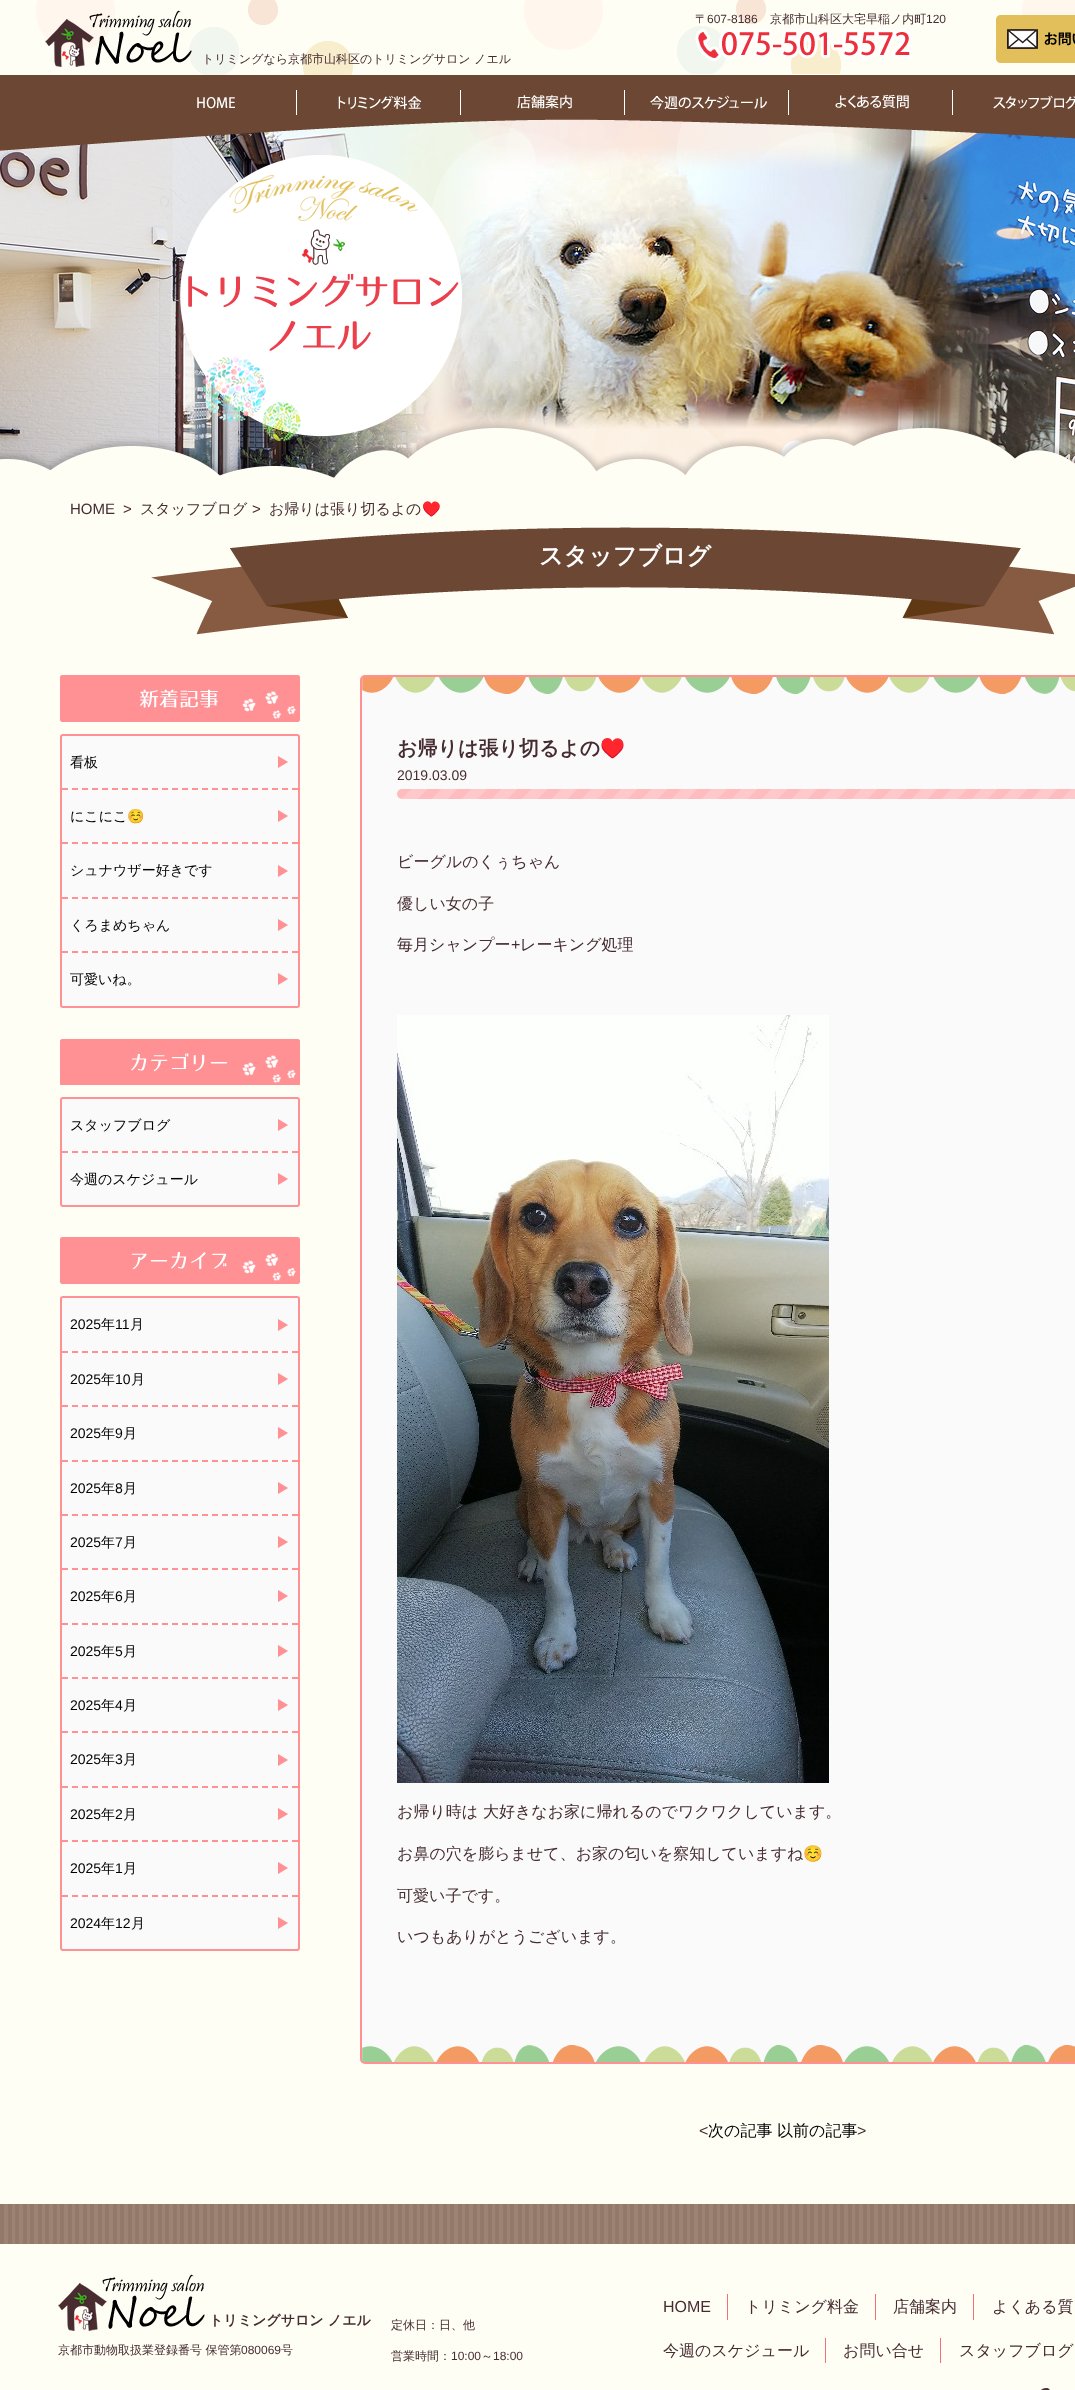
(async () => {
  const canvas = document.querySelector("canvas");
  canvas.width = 1075;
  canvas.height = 2390;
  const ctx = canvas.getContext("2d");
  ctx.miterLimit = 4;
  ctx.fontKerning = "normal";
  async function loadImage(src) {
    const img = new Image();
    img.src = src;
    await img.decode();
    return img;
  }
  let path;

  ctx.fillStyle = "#fffef5";
  ctx.fillRect(0, 0, 1075, 2390);
  ctx.drawImage(await loadImage("img/1.png"), 36, 0, 1039, 75);
  ctx.drawImage(await loadImage("img/2.png"), 695, 29, 217, 32);
  ctx.drawImage(await loadImage("img/3.png"), 996, 15, 79, 48);
  ctx.drawImage(await loadImage("img/4.png"), 45, 10, 147, 57);
  ctx.drawImage(await loadImage("img/12.png"), 0, 119, 1075, 359);
  ctx.drawImage(await loadImage("img/5.png"), 0, 75, 1075, 76);
  ctx.drawImage(await loadImage("img/6.png"), 197, 97, 38, 12);
  ctx.fillStyle = "#ffffff";
  ctx.fillRect(296, 90, 1, 25);
  ctx.drawImage(await loadImage("img/7.png"), 338, 95, 84, 15);
  ctx.fillRect(460, 90, 1, 25);
  ctx.drawImage(await loadImage("img/8.png"), 517, 95, 55, 14);
  ctx.fillRect(624, 90, 1, 25);
  ctx.drawImage(await loadImage("img/9.png"), 650, 95, 118, 15);
  ctx.fillRect(788, 90, 1, 25);
  ctx.drawImage(await loadImage("img/10.png"), 835, 95, 74, 14);
  ctx.fillRect(952, 90, 1, 25);
  ctx.drawImage(await loadImage("img/11.png"), 993, 95, 82, 14);
  ctx.drawImage(await loadImage("img/13.png"), 180, 155, 282, 286);
  ctx.drawImage(await loadImage("img/14.png"), 151, 527, 924, 108);
  ctx.drawImage(await loadImage("img/15.png"), 60, 675, 240, 47);
  ctx.fillStyle = "#fafafa";
  ctx.beginPath();
  ctx.roundRect(61, 735, 238, 272, 2);
  ctx.fill();
  ctx.strokeStyle = "#ff9195";
  ctx.lineWidth = 2;
  ctx.stroke();
  ctx.drawImage(await loadImage("img/16.png"), 278, 756, 10, 12);
  path = new Path2D("M62 789H298");
  ctx.setLineDash([6, 4]);
  ctx.stroke(path);
  ctx.drawImage(await loadImage("img/16.png"), 278, 810, 10, 12);
  path = new Path2D("M62 843H298");
  ctx.stroke(path);
  ctx.drawImage(await loadImage("img/16.png"), 278, 865, 10, 12);
  path = new Path2D("M62 898H298");
  ctx.stroke(path);
  ctx.drawImage(await loadImage("img/16.png"), 278, 919, 10, 12);
  path = new Path2D("M62 952H298");
  ctx.stroke(path);
  ctx.drawImage(await loadImage("img/16.png"), 278, 973, 10, 12);
  ctx.drawImage(await loadImage("img/17.png"), 60, 1039, 240, 46);
  ctx.beginPath();
  ctx.roundRect(61, 1098, 238, 108, 2);
  ctx.fill();
  ctx.setLineDash([]);
  ctx.stroke();
  ctx.drawImage(await loadImage("img/16.png"), 278, 1119, 10, 12);
  path = new Path2D("M62 1152H298");
  ctx.setLineDash([6, 4]);
  ctx.stroke(path);
  ctx.drawImage(await loadImage("img/16.png"), 278, 1173, 10, 12);
  ctx.drawImage(await loadImage("img/18.png"), 60, 1237, 240, 47);
  ctx.beginPath();
  ctx.roundRect(61, 1297, 238, 653, 2);
  ctx.fill();
  ctx.setLineDash([]);
  ctx.stroke();
  ctx.drawImage(await loadImage("img/16.png"), 278, 1319, 10, 12);
  path = new Path2D("M62 1352H298");
  ctx.setLineDash([6, 4]);
  ctx.stroke(path);
  ctx.drawImage(await loadImage("img/16.png"), 278, 1373, 10, 12);
  path = new Path2D("M62 1406H298");
  ctx.stroke(path);
  ctx.drawImage(await loadImage("img/16.png"), 278, 1427, 10, 12);
  path = new Path2D("M62 1461H298");
  ctx.stroke(path);
  ctx.drawImage(await loadImage("img/16.png"), 278, 1482, 10, 12);
  path = new Path2D("M62 1515H298");
  ctx.stroke(path);
  ctx.drawImage(await loadImage("img/16.png"), 278, 1536, 10, 12);
  path = new Path2D("M62 1569H298");
  ctx.stroke(path);
  ctx.drawImage(await loadImage("img/16.png"), 278, 1590, 10, 12);
  path = new Path2D("M62 1624H298");
  ctx.stroke(path);
  ctx.drawImage(await loadImage("img/16.png"), 278, 1645, 10, 12);
  path = new Path2D("M62 1678H298");
  ctx.stroke(path);
  ctx.drawImage(await loadImage("img/16.png"), 278, 1699, 10, 12);
  path = new Path2D("M62 1732H298");
  ctx.stroke(path);
  ctx.drawImage(await loadImage("img/16.png"), 278, 1754, 10, 12);
  path = new Path2D("M62 1787H298");
  ctx.stroke(path);
  ctx.drawImage(await loadImage("img/16.png"), 278, 1808, 10, 12);
  path = new Path2D("M62 1841H298");
  ctx.stroke(path);
  ctx.drawImage(await loadImage("img/16.png"), 278, 1862, 10, 12);
  path = new Path2D("M62 1896H298");
  ctx.stroke(path);
  ctx.drawImage(await loadImage("img/16.png"), 278, 1917, 10, 12);
  ctx.beginPath();
  ctx.roundRect(360, 675, 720, 1389, 5);
  ctx.fill();
  ctx.drawImage(await loadImage("img/19.png"), 362, 677, 713, 1385);
  ctx.beginPath();
  ctx.roundRect(361, 676, 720, 1387, 4);
  ctx.setLineDash([]);
  ctx.stroke();
  ctx.drawImage(await loadImage("img/20.png"), 397, 789, 678, 10);
  ctx.drawImage(await loadImage("img/21.png"), 397, 1015, 432, 768);
  ctx.drawImage(await loadImage("img/22.png"), 0, 2204, 1075, 40);
  ctx.drawImage(await loadImage("img/23.png"), 58, 2274, 147, 57);
  for (const [x, y, w, h, color] of [
    [727, 2294, 1, 26, "#f37176"],
    [875, 2294, 1, 26, "#f37176"],
    [973, 2294, 1, 26, "#f37176"],
    [825, 2338, 1, 25, "#f37176"],
    [940, 2338, 1, 25, "#f37176"],
  ]) {
    ctx.fillStyle = color;
    ctx.fillRect(x, y, w, h);
  }
  ctx.drawImage(await loadImage("img/24.png"), 1040, 2388, 10, 2);
  ctx.font = "500 12px WenQuanYi Zen Hei";
  ctx.fillStyle = "#462c30";
  ctx.fillText("〒", 695, 23);
  ctx.font = "12px Liberation Sans";
  ctx.fillText("607-8186", 707, 23);
  ctx.font = "500 12px WenQuanYi Zen Hei";
  ctx.fillText("京都市山科区大宅早稲ノ内町", 770, 23);
  ctx.font = "12px Liberation Sans";
  ctx.fillText("120", 926, 23);
  ctx.font = "500 12px WenQuanYi Zen Hei";
  ctx.fillText("トリミングなら京都市山科区のトリミングサロン ノエル", 202, 63);
  ctx.font = "15px Liberation Sans";
  ctx.fillText("HOME", 70, 514);
  ctx.fillText(">", 123, 514);
  ctx.font = "500 15px WenQuanYi Zen Hei";
  ctx.fillText("スタッフブログ", 140, 514);
  ctx.font = "15px Liberation Sans";
  ctx.fillText(">", 252, 514);
  ctx.font = "500 15px WenQuanYi Zen Hei";
  ctx.fillText("お帰りは張り切るよの", 269, 514);
  ctx.font = "15px Noto Color Emoji";
  ctx.fillText("♥️", 422, 514);
  ctx.font = "bold 24px WenQuanYi Zen Hei";
  ctx.fillStyle = "#ffffff";
  ctx.fillText("スタッフブログ", 539, 564);
  ctx.font = "500 14px WenQuanYi Zen Hei";
  ctx.fillStyle = "#000000";
  ctx.fillText("看板", 70, 767);
  ctx.fillText("にこにこ", 70, 821);
  ctx.font = "14px Noto Color Emoji";
  ctx.fillText("☺️", 127, 821);
  ctx.font = "500 14px WenQuanYi Zen Hei";
  for (const [text, x, y] of [
    ["シュナウザー好きです", 70, 875],
    ["くろまめちゃん", 70, 930],
    ["可愛いね。", 70, 984],
    ["スタッフブログ", 70, 1130],
    ["今週のスケジュール", 70, 1184],
  ]) {
    ctx.fillText(text, x, y);
  }
  ctx.font = "14px Liberation Sans";
  ctx.fillText("2025", 70, 1329);
  ctx.font = "500 14px WenQuanYi Zen Hei";
  ctx.fillText("年", 101, 1329);
  ctx.font = "14px Liberation Sans";
  ctx.fillText("11", 115, 1329);
  ctx.font = "500 14px WenQuanYi Zen Hei";
  ctx.fillText("月", 130, 1329);
  ctx.font = "14px Liberation Sans";
  ctx.fillText("2025", 70, 1384);
  ctx.font = "500 14px WenQuanYi Zen Hei";
  ctx.fillText("年", 101, 1384);
  ctx.font = "14px Liberation Sans";
  ctx.fillText("10", 115, 1384);
  ctx.font = "500 14px WenQuanYi Zen Hei";
  ctx.fillText("月", 131, 1384);
  ctx.font = "14px Liberation Sans";
  ctx.fillText("2025", 70, 1438);
  ctx.font = "500 14px WenQuanYi Zen Hei";
  ctx.fillText("年", 101, 1438);
  ctx.font = "14px Liberation Sans";
  ctx.fillText("9", 115, 1438);
  ctx.font = "500 14px WenQuanYi Zen Hei";
  ctx.fillText("月", 123, 1438);
  ctx.font = "14px Liberation Sans";
  ctx.fillText("2025", 70, 1493);
  ctx.font = "500 14px WenQuanYi Zen Hei";
  ctx.fillText("年", 101, 1493);
  ctx.font = "14px Liberation Sans";
  ctx.fillText("8", 115, 1493);
  ctx.font = "500 14px WenQuanYi Zen Hei";
  ctx.fillText("月", 123, 1493);
  ctx.font = "14px Liberation Sans";
  ctx.fillText("2025", 70, 1547);
  ctx.font = "500 14px WenQuanYi Zen Hei";
  ctx.fillText("年", 101, 1547);
  ctx.font = "14px Liberation Sans";
  ctx.fillText("7", 115, 1547);
  ctx.font = "500 14px WenQuanYi Zen Hei";
  ctx.fillText("月", 123, 1547);
  ctx.font = "14px Liberation Sans";
  ctx.fillText("2025", 70, 1601);
  ctx.font = "500 14px WenQuanYi Zen Hei";
  ctx.fillText("年", 101, 1601);
  ctx.font = "14px Liberation Sans";
  ctx.fillText("6", 115, 1601);
  ctx.font = "500 14px WenQuanYi Zen Hei";
  ctx.fillText("月", 123, 1601);
  ctx.font = "14px Liberation Sans";
  ctx.fillText("2025", 70, 1656);
  ctx.font = "500 14px WenQuanYi Zen Hei";
  ctx.fillText("年", 101, 1656);
  ctx.font = "14px Liberation Sans";
  ctx.fillText("5", 115, 1656);
  ctx.font = "500 14px WenQuanYi Zen Hei";
  ctx.fillText("月", 123, 1656);
  ctx.font = "14px Liberation Sans";
  ctx.fillText("2025", 70, 1710);
  ctx.font = "500 14px WenQuanYi Zen Hei";
  ctx.fillText("年", 101, 1710);
  ctx.font = "14px Liberation Sans";
  ctx.fillText("4", 115, 1710);
  ctx.font = "500 14px WenQuanYi Zen Hei";
  ctx.fillText("月", 123, 1710);
  ctx.font = "14px Liberation Sans";
  ctx.fillText("2025", 70, 1764);
  ctx.font = "500 14px WenQuanYi Zen Hei";
  ctx.fillText("年", 101, 1764);
  ctx.font = "14px Liberation Sans";
  ctx.fillText("3", 115, 1764);
  ctx.font = "500 14px WenQuanYi Zen Hei";
  ctx.fillText("月", 123, 1764);
  ctx.font = "14px Liberation Sans";
  ctx.fillText("2025", 70, 1819);
  ctx.font = "500 14px WenQuanYi Zen Hei";
  ctx.fillText("年", 101, 1819);
  ctx.font = "14px Liberation Sans";
  ctx.fillText("2", 115, 1819);
  ctx.font = "500 14px WenQuanYi Zen Hei";
  ctx.fillText("月", 123, 1819);
  ctx.font = "14px Liberation Sans";
  ctx.fillText("2025", 70, 1873);
  ctx.font = "500 14px WenQuanYi Zen Hei";
  ctx.fillText("年", 101, 1873);
  ctx.font = "14px Liberation Sans";
  ctx.fillText("1", 115, 1873);
  ctx.font = "500 14px WenQuanYi Zen Hei";
  ctx.fillText("月", 123, 1873);
  ctx.font = "14px Liberation Sans";
  ctx.fillText("2024", 70, 1928);
  ctx.font = "500 14px WenQuanYi Zen Hei";
  ctx.fillText("年", 101, 1928);
  ctx.font = "14px Liberation Sans";
  ctx.fillText("12", 115, 1928);
  ctx.font = "500 14px WenQuanYi Zen Hei";
  ctx.fillText("月", 131, 1928);
  ctx.font = "bold 20px WenQuanYi Zen Hei";
  ctx.fillStyle = "#462c30";
  ctx.fillText("お帰りは張り切るよの", 397, 755);
  ctx.font = "bold 20px Noto Color Emoji";
  ctx.fillText("♥️", 600, 755);
  ctx.font = "14px Liberation Sans";
  ctx.fillText("2019.03.09", 397, 780);
  ctx.font = "500 16px WenQuanYi Zen Hei";
  for (const [text, x, y] of [
    ["ビーグルのくぅちゃん", 397, 867],
    ["優しい女の子", 397, 909],
    ["毎月シャンプー", 397, 950],
  ]) {
    ctx.fillText(text, x, y);
  }
  ctx.font = "16px Liberation Sans";
  ctx.fillText("+", 511, 950);
  ctx.font = "500 16px WenQuanYi Zen Hei";
  for (const [text, x, y] of [
    ["レーキング処理", 520, 950],
    ["お帰り時は 大好きなお家に帰れるのでワクワクしています。", 397, 1817],
    ["お鼻の穴を膨らませて、お家の匂いを察知していますね", 397, 1859],
  ]) {
    ctx.fillText(text, x, y);
  }
  ctx.font = "16px Noto Color Emoji";
  ctx.fillText("☺️", 803, 1859);
  ctx.font = "500 16px WenQuanYi Zen Hei";
  ctx.fillText("可愛い子です。", 397, 1901);
  ctx.fillText("いつもありがとうございます。", 397, 1942);
  ctx.font = "16px Liberation Sans";
  ctx.fillText("<", 699, 2136);
  ctx.font = "500 16px WenQuanYi Zen Hei";
  ctx.fillStyle = "#000000";
  ctx.fillText("次の記事", 708, 2136);
  ctx.fillText("以前の記事", 777, 2136);
  ctx.font = "16px Liberation Sans";
  ctx.fillStyle = "#462c30";
  ctx.fillText(">", 857, 2136);
  ctx.font = "bold 14px WenQuanYi Zen Hei";
  ctx.fillText("トリミングサロン ノエル", 209, 2325);
  ctx.font = "500 12px WenQuanYi Zen Hei";
  ctx.fillText("京都市動物取扱業登録番号 保管第", 58, 2354);
  ctx.font = "12px Liberation Sans";
  ctx.fillText("080069", 241, 2354);
  ctx.font = "500 12px WenQuanYi Zen Hei";
  for (const [text, x, y] of [
    ["号", 281, 2354],
    ["定休日：日、他", 391, 2329],
    ["営業時間：", 391, 2360],
  ]) {
    ctx.fillText(text, x, y);
  }
  ctx.font = "12px Liberation Sans";
  ctx.fillText("10:00", 451, 2360);
  ctx.font = "500 12px WenQuanYi Zen Hei";
  ctx.fillText("～", 481, 2360);
  ctx.font = "12px Liberation Sans";
  ctx.fillText("18:00", 493, 2360);
  ctx.font = "16px Liberation Sans";
  ctx.fillText("HOME", 663, 2312);
  ctx.font = "500 16px WenQuanYi Zen Hei";
  for (const [text, x, y] of [
    ["トリミング料金", 745, 2312],
    ["店舗案内", 893, 2312],
    ["よくある質", 992, 2312],
    ["今週のスケジュール", 663, 2356],
    ["お問い合せ", 843, 2356],
    ["スタッフブログ", 959, 2356],
  ]) {
    ctx.fillText(text, x, y);
  }
})();
